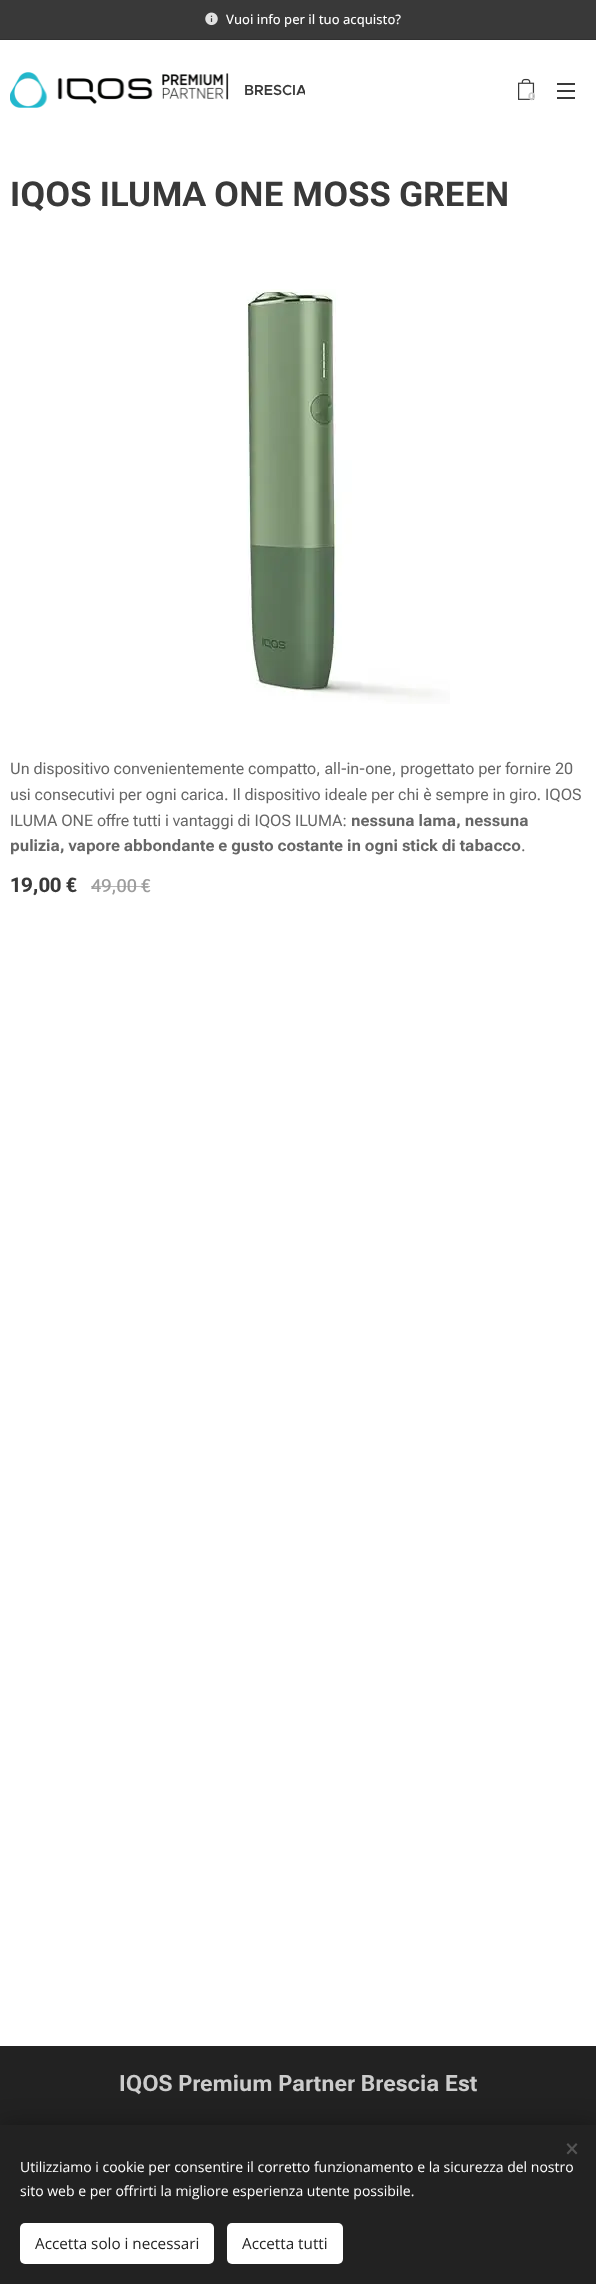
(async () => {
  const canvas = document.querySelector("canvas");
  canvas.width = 596;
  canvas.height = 2284;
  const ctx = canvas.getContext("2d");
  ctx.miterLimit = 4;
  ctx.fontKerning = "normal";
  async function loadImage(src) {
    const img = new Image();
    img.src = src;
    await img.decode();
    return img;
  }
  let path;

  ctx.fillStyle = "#ffffff";
  ctx.fillRect(0, 0, 596, 2284);
  ctx.fillStyle = "#393939";
  ctx.fillRect(0, 0, 596, 39);
  ctx.drawImage(await loadImage("img/1.png"), 205, 12, 13, 14);
  ctx.fillStyle = "#303030";
  ctx.fillRect(0, 39, 596, 1);
  ctx.drawImage(await loadImage("img/2.png"), 10, 72, 219, 36);
  ctx.drawImage(await loadImage("img/3.png"), 518, 78, 17, 22);
  for (const [x, y, w, h, color] of [
    [557, 90, 18, 2, "#393939"],
    [557, 83, 18, 2, "#393939"],
    [557, 97, 18, 2, "#393939"],
  ]) {
    ctx.fillStyle = color;
    ctx.fillRect(x, y, w, h);
  }
  ctx.drawImage(await loadImage("img/4.png"), 246, 289, 204, 415);
  ctx.fillStyle = "#222222";
  ctx.fillRect(0, 2046, 596, 79);
  ctx.fillStyle = "rgba(0, 0, 0, 0.33)";
  ctx.filter = "blur(12.5px)";
  ctx.beginPath();
  ctx.rect(0, 2125, 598, 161);
  ctx.fill();
  ctx.filter = "none";
  ctx.fillStyle = "#222222";
  ctx.fillRect(0, 2125, 596, 159);
  ctx.fillStyle = "#555555";
  path = new Path2D("M566.5 2153L576 2143L577.5 2144.5L568 2154.5Z");
  ctx.fill(path);
  path = new Path2D("M568 2143L577.5 2153L576 2154.5L566.5 2144.5Z");
  ctx.fill(path);
  ctx.fillStyle = "#ffffff";
  ctx.beginPath();
  ctx.roundRect(20, 2223, 194, 41, 5);
  ctx.fill();
  ctx.beginPath();
  ctx.roundRect(227, 2223, 116, 41, 5);
  ctx.fill();
  ctx.font = "500 13px Open Sans";
  ctx.fillText("Vuoi info per il tuo acquisto?", 226, 24);
  ctx.save();
  ctx.beginPath();
  ctx.rect(240, 76, 65, 27);
  ctx.clip();
  ctx.font = "600 14.5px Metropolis";
  ctx.fillStyle = "#393939";
  ctx.fillText("BRESCIA", 244, 95);
  ctx.restore();
  ctx.font = "bold 11px Montserrat";
  ctx.fillStyle = "#cccccc";
  ctx.fillText("0", 528, 100);
  ctx.font = "bold 34px Roboto Flex";
  ctx.fillStyle = "#393939";
  ctx.fillText("IQOS ILUMA ONE MOSS GREEN", 10, 206);
  ctx.font = "16px Roboto Flex";
  ctx.fillStyle = "#666666";
  for (const [text, x, y] of [
    ["Un dispositivo convenientemente compatto, all-in-one, progettato per fornire 20", 10, 774],
    ["usi consecutivi per ogni carica. Il dispositivo ideale per chi è sempre in giro. IQOS", 10, 800],
    ["ILUMA ONE offre tutti i vantaggi di IQOS ILUMA:", 10, 826],
  ]) {
    ctx.fillText(text, x, y);
  }
  ctx.font = "bold 16px Roboto Flex";
  ctx.fillText("nessuna lama, nessuna", 351, 826);
  ctx.fillText("pulizia, vapore abbondante e gusto costante in ogni stick di tabacco", 10, 851);
  ctx.font = "16px Roboto Flex";
  ctx.fillText(".", 521, 851);
  ctx.font = "bold 20px Roboto Flex";
  ctx.fillStyle = "#393939";
  ctx.fillText("19,00 €", 10, 892);
  ctx.font = "500 18px Roboto Flex";
  ctx.fillStyle = "#9d9d9d";
  ctx.fillText("49,00 €", 91, 892);
  ctx.fillStyle = "rgba(157, 157, 157, 0.75)";
  ctx.fillRect(91, 886, 59, 1);
  ctx.font = "bold 22.4px Roboto Flex";
  ctx.fillStyle = "#cccccc";
  ctx.fillText("IQOS Premium Partner Brescia Est", 119, 2091);
  ctx.font = "14px Open Sans";
  ctx.fillStyle = "#ffffff";
  ctx.fillText("Utilizziamo i cookie per consentire il corretto funzionamento e la sicurezza del nostro", 20, 2172);
  ctx.fillText("sito web e per offrirti la migliore esperienza utente possibile.", 20, 2196);
  ctx.font = "15.25px Open Sans";
  ctx.fillStyle = "#222222";
  ctx.fillText("Accetta solo i necessari", 35, 2249);
  ctx.fillText("Accetta tutti", 242, 2249);
})();
